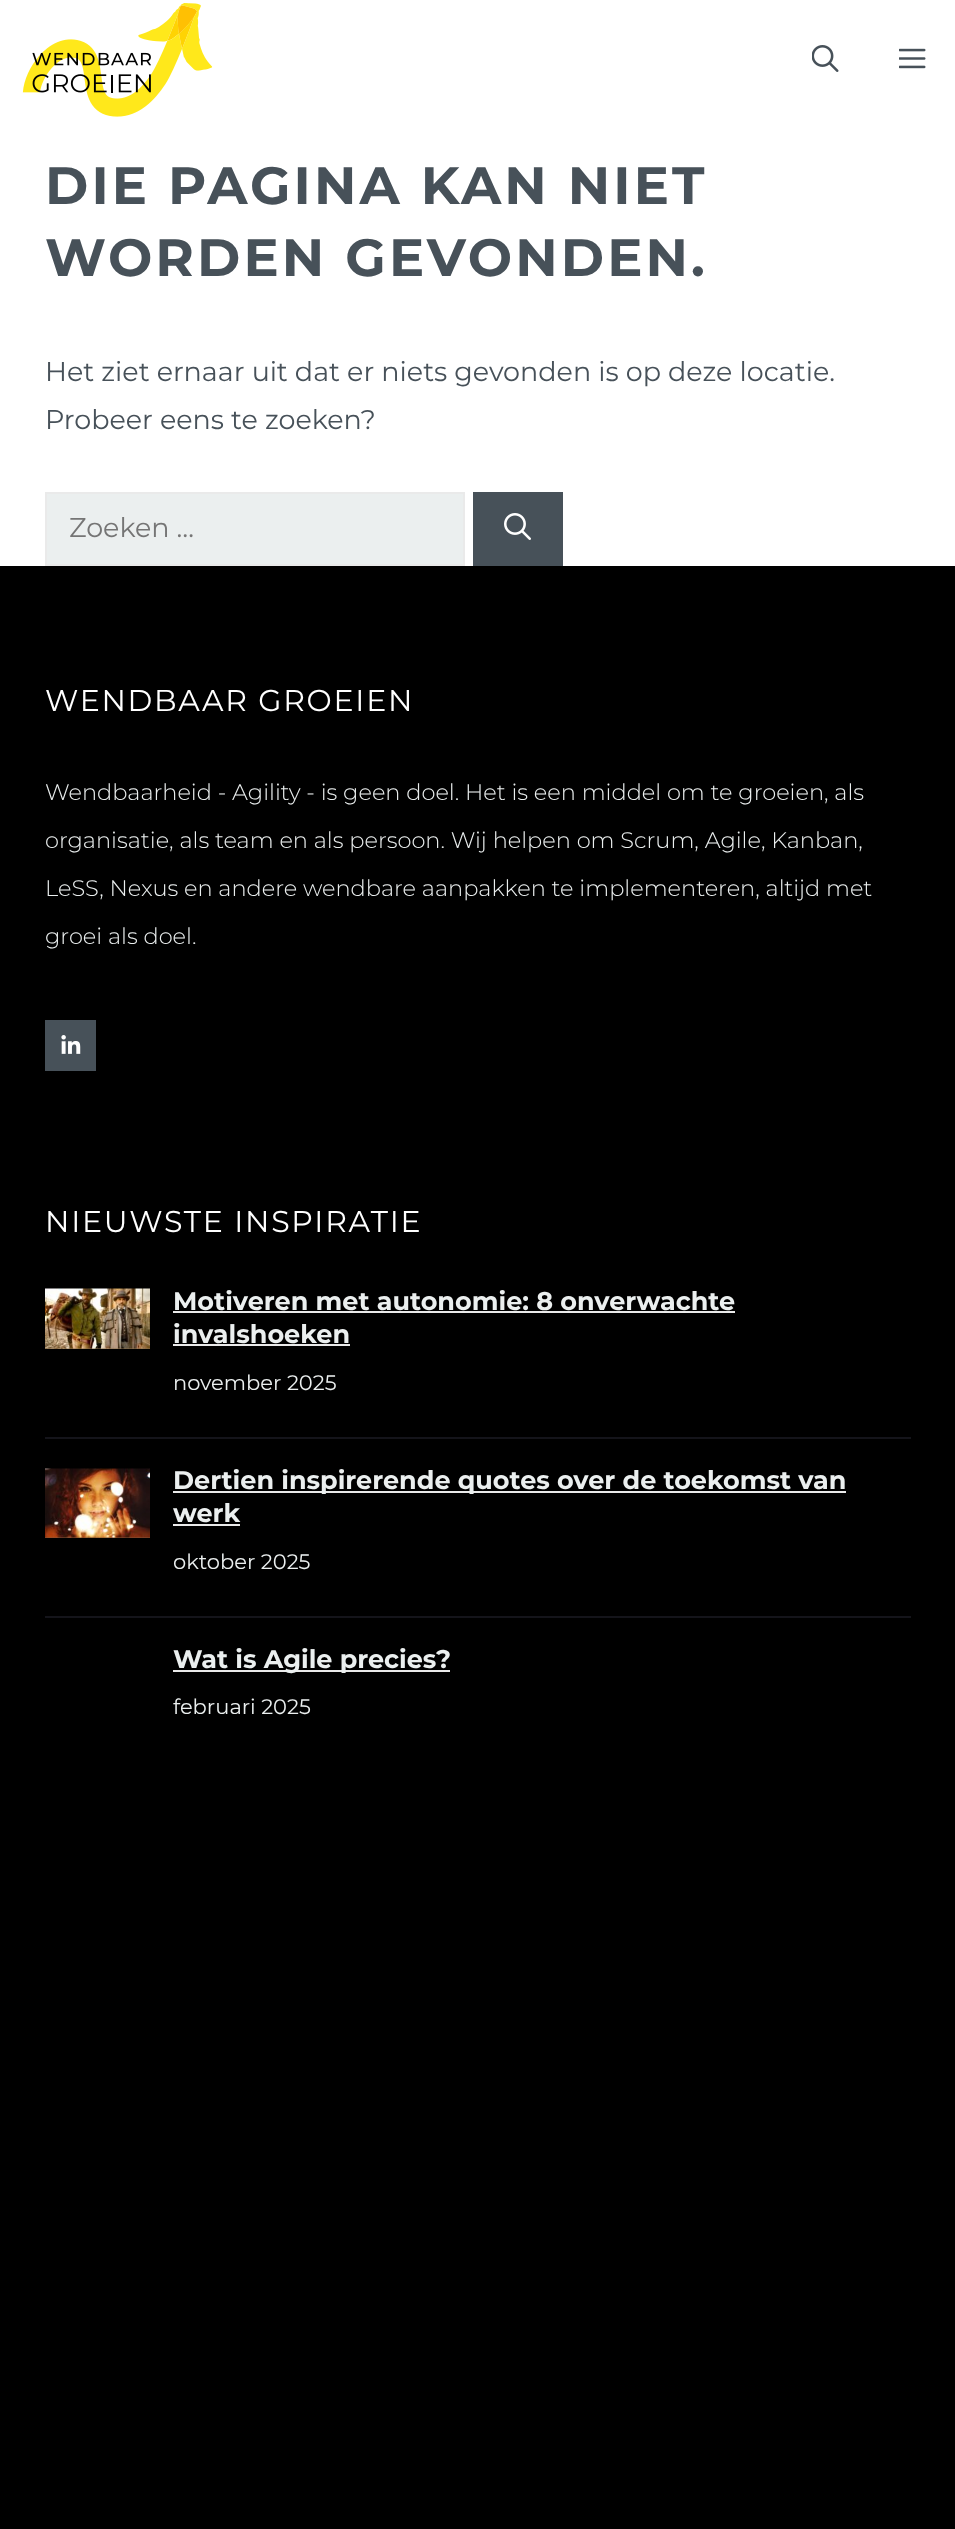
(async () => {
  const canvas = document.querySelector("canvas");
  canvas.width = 955;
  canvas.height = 2529;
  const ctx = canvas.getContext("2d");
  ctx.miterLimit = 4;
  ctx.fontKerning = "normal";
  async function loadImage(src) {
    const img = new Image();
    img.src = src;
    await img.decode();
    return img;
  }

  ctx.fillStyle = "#ffffff";
  ctx.fillRect(0, 0, 955, 2529);
  ctx.drawImage(await loadImage("img/1.png"), 22, 3, 191, 114);
  ctx.drawImage(await loadImage("img/2.png"), 812, 45, 27, 27);
  ctx.drawImage(await loadImage("img/3.png"), 899, 48, 27, 21);
  ctx.fillStyle = "#ebefef";
  ctx.beginPath();
  ctx.rect(46, 493, 418, 72);
  ctx.fill();
  ctx.strokeStyle = "#eaeaea";
  ctx.lineWidth = 2;
  ctx.stroke();
  ctx.fillStyle = "#475159";
  ctx.fillRect(473, 492, 90, 74);
  ctx.drawImage(await loadImage("img/4.png"), 504, 513, 27, 27);
  ctx.fillStyle = "#000000";
  ctx.fillRect(0, 566, 955, 1963);
  ctx.fillStyle = "#475159";
  ctx.fillRect(45, 1020, 51, 51);
  ctx.drawImage(await loadImage("img/5.png"), 61, 1035, 20, 19);
  ctx.fillStyle = "#14141a";
  ctx.fillRect(45, 1437, 866, 2);
  ctx.fillStyle = "#88704f";
  ctx.fillRect(45, 1348, 105, 1);
  ctx.drawImage(await loadImage("img/6.png"), 45, 1288, 105, 61);
  for (const [x, y, w, h, color] of [
    [173, 1311, 562, 2, "#eaeaea"],
    [173, 1344, 177, 2, "#eaeaea"],
    [45, 1616, 866, 2, "#14141a"],
    [45, 1537, 105, 1, "#845639"],
  ]) {
    ctx.fillStyle = color;
    ctx.fillRect(x, y, w, h);
  }
  ctx.drawImage(await loadImage("img/7.png"), 45, 1468, 105, 70);
  for (const [x, y, w, h, color] of [
    [173, 1491, 673, 2, "#eaeaea"],
    [173, 1524, 67, 2, "#eaeaea"],
    [173, 1670, 277, 2, "#eaeaea"],
  ]) {
    ctx.fillStyle = color;
    ctx.fillRect(x, y, w, h);
  }
  ctx.letterSpacing = "3.1px";
  ctx.font = "bold 52.5px Montserrat";
  ctx.fillStyle = "#475159";
  ctx.fillText("DIE PAGINA KAN NIET", 45, 204);
  ctx.fillText("WORDEN GEVONDEN.", 45, 276);
  ctx.letterSpacing = "0px";
  ctx.font = "27px Montserrat";
  ctx.fillText("Het ziet ernaar uit dat er niets gevonden is op deze locatie.", 45, 381);
  ctx.fillText("Probeer eens te zoeken?", 45, 429);
  ctx.fillStyle = "#757575";
  ctx.fillText("Zoeken …", 69, 537);
  ctx.letterSpacing = "1.75px";
  ctx.font = "30px Montserrat";
  ctx.fillStyle = "#ffffff";
  ctx.fillText("WENDBAAR GROEIEN", 45, 711);
  ctx.letterSpacing = "0px";
  ctx.font = "300 22.5px Montserrat";
  ctx.fillStyle = "#ebefef";
  for (const [text, x, y] of [
    ["Wendbaarheid - Agility - is geen doel. Het is een middel om te groeien, als", 45, 800],
    ["organisatie, als team en als persoon. Wij helpen om Scrum, Agile, Kanban,", 45, 848],
    ["LeSS, Nexus en andere wendbare aanpakken te implementeren, altijd met", 45, 896],
    ["groei als doel.", 45, 944],
  ]) {
    ctx.fillText(text, x, y);
  }
  ctx.letterSpacing = "1.75px";
  ctx.font = "30px Montserrat";
  ctx.fillStyle = "#ffffff";
  ctx.fillText("NIEUWSTE INSPIRATIE", 45, 1232);
  ctx.letterSpacing = "0px";
  ctx.font = "bold 25.5px Montserrat";
  ctx.fillStyle = "#ebefef";
  ctx.fillText("Motiveren met autonomie: 8 onverwachte", 173, 1310);
  ctx.fillText("invalshoeken", 173, 1343);
  ctx.font = "21px Montserrat";
  ctx.fillText("november 2025", 173, 1390);
  ctx.font = "bold 25.5px Montserrat";
  ctx.fillText("Dertien inspirerende quotes over de toekomst van", 173, 1489);
  ctx.fillText("werk", 173, 1522);
  ctx.font = "21px Montserrat";
  ctx.fillText("oktober 2025", 173, 1569);
  ctx.font = "bold 25.5px Montserrat";
  ctx.fillText("Wat is Agile precies?", 173, 1668);
  ctx.font = "21px Montserrat";
  ctx.fillText("februari 2025", 173, 1714);
})();
